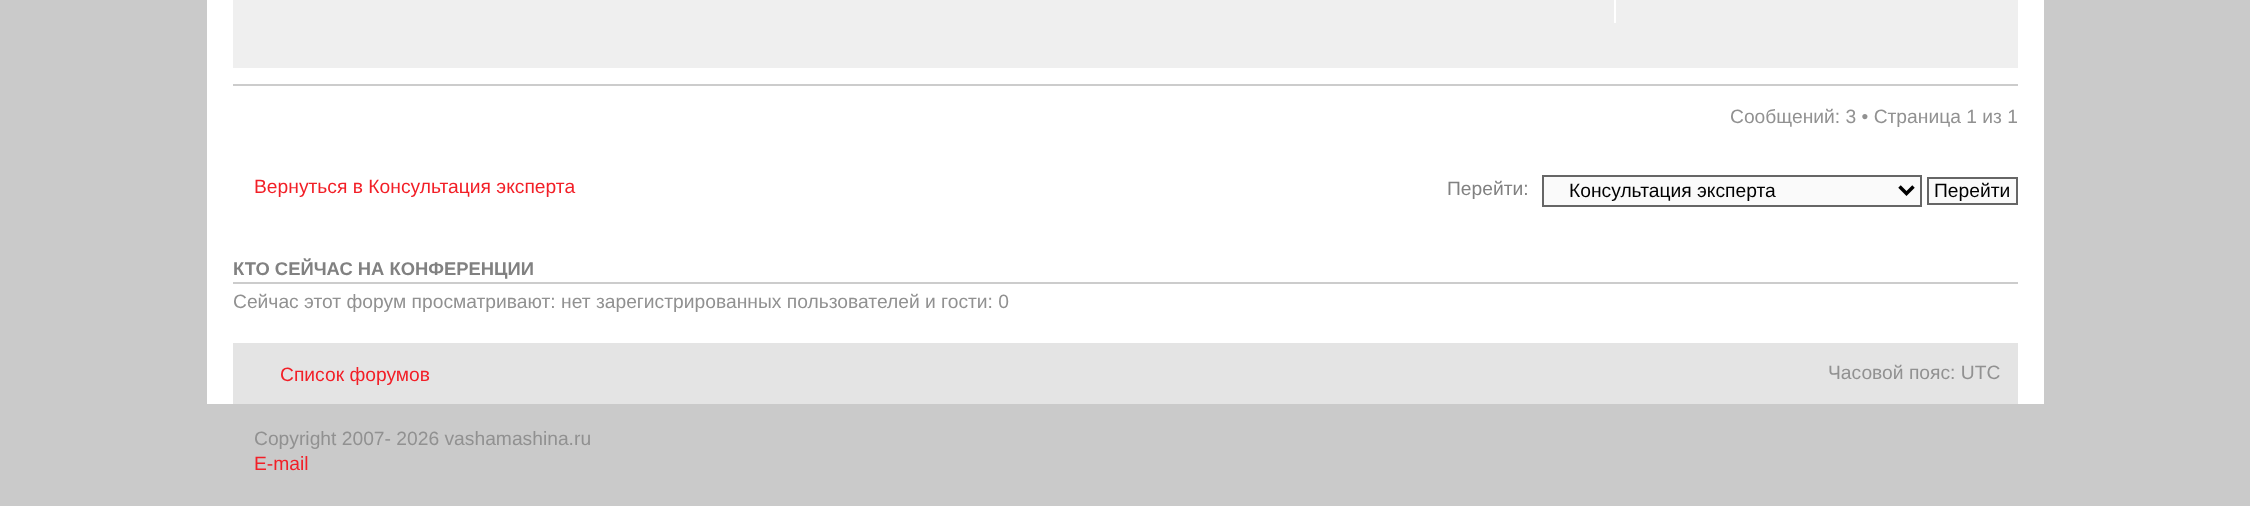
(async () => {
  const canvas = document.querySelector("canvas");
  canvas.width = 2250;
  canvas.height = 506;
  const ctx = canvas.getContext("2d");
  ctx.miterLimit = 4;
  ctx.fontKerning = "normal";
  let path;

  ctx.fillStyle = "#cacaca";
  ctx.fillRect(0, 0, 2250, 506);
  for (const [x, y, w, h, color] of [
    [207, 0, 1837, 404, "#ffffff"],
    [233, 0, 1785, 68, "#efefef"],
    [1614, 0, 2, 23, "#ffffff"],
    [233, 84, 1785, 2, "#cccccc"],
  ]) {
    ctx.fillStyle = color;
    ctx.fillRect(x, y, w, h);
  }
  ctx.fillStyle = "#fafafa";
  ctx.beginPath();
  ctx.rect(1543, 176, 378, 30);
  ctx.fill();
  ctx.strokeStyle = "#666666";
  ctx.lineWidth = 2;
  ctx.stroke();
  path = new Path2D("M1899.5 186.5L1906.5 193.5L1913.5 186.5");
  ctx.strokeStyle = "#000000";
  ctx.lineWidth = 3.5;
  ctx.stroke(path);
  ctx.beginPath();
  ctx.rect(1928, 178, 89, 26);
  ctx.fill();
  ctx.strokeStyle = "#666666";
  ctx.lineWidth = 2;
  ctx.stroke();
  ctx.fillStyle = "#cccccc";
  ctx.fillRect(233, 282, 1785, 2);
  ctx.fillStyle = "#e4e4e4";
  ctx.fillRect(233, 343, 1785, 61);
  ctx.font = "19.25px Liberation Sans";
  ctx.fillStyle = "#919191";
  ctx.fillText("Сообщений: 3 • Страница 1 из 1", 1730, 123);
  ctx.fillStyle = "#f21f27";
  ctx.fillText("Вернуться в Консультация эксперта", 254, 193);
  ctx.fillStyle = "#818181";
  ctx.fillText("Перейти:", 1447, 195);
  ctx.fillStyle = "#000000";
  ctx.fillText("Консультация эксперта", 1569, 197);
  ctx.fillText("Перейти", 1934, 197);
  ctx.font = "bold 18.4px Liberation Sans";
  ctx.fillStyle = "#818181";
  ctx.fillText("КТО СЕЙЧАС НА КОНФЕРЕНЦИИ", 233, 275);
  ctx.font = "19.25px Liberation Sans";
  ctx.fillStyle = "#919191";
  ctx.fillText("Сейчас этот форум просматривают: нет зарегистрированных пользователей и гости: 0", 233, 308);
  ctx.fillStyle = "#f21f27";
  ctx.fillText("Список форумов", 280, 381);
  ctx.fillStyle = "#919191";
  ctx.fillText("Часовой пояс: UTC", 1828, 379);
  ctx.fillText("Copyright 2007- 2026 vashamashina.ru", 254, 445);
  ctx.fillStyle = "#f21f27";
  ctx.fillText("E-mail", 254, 470);
})();
